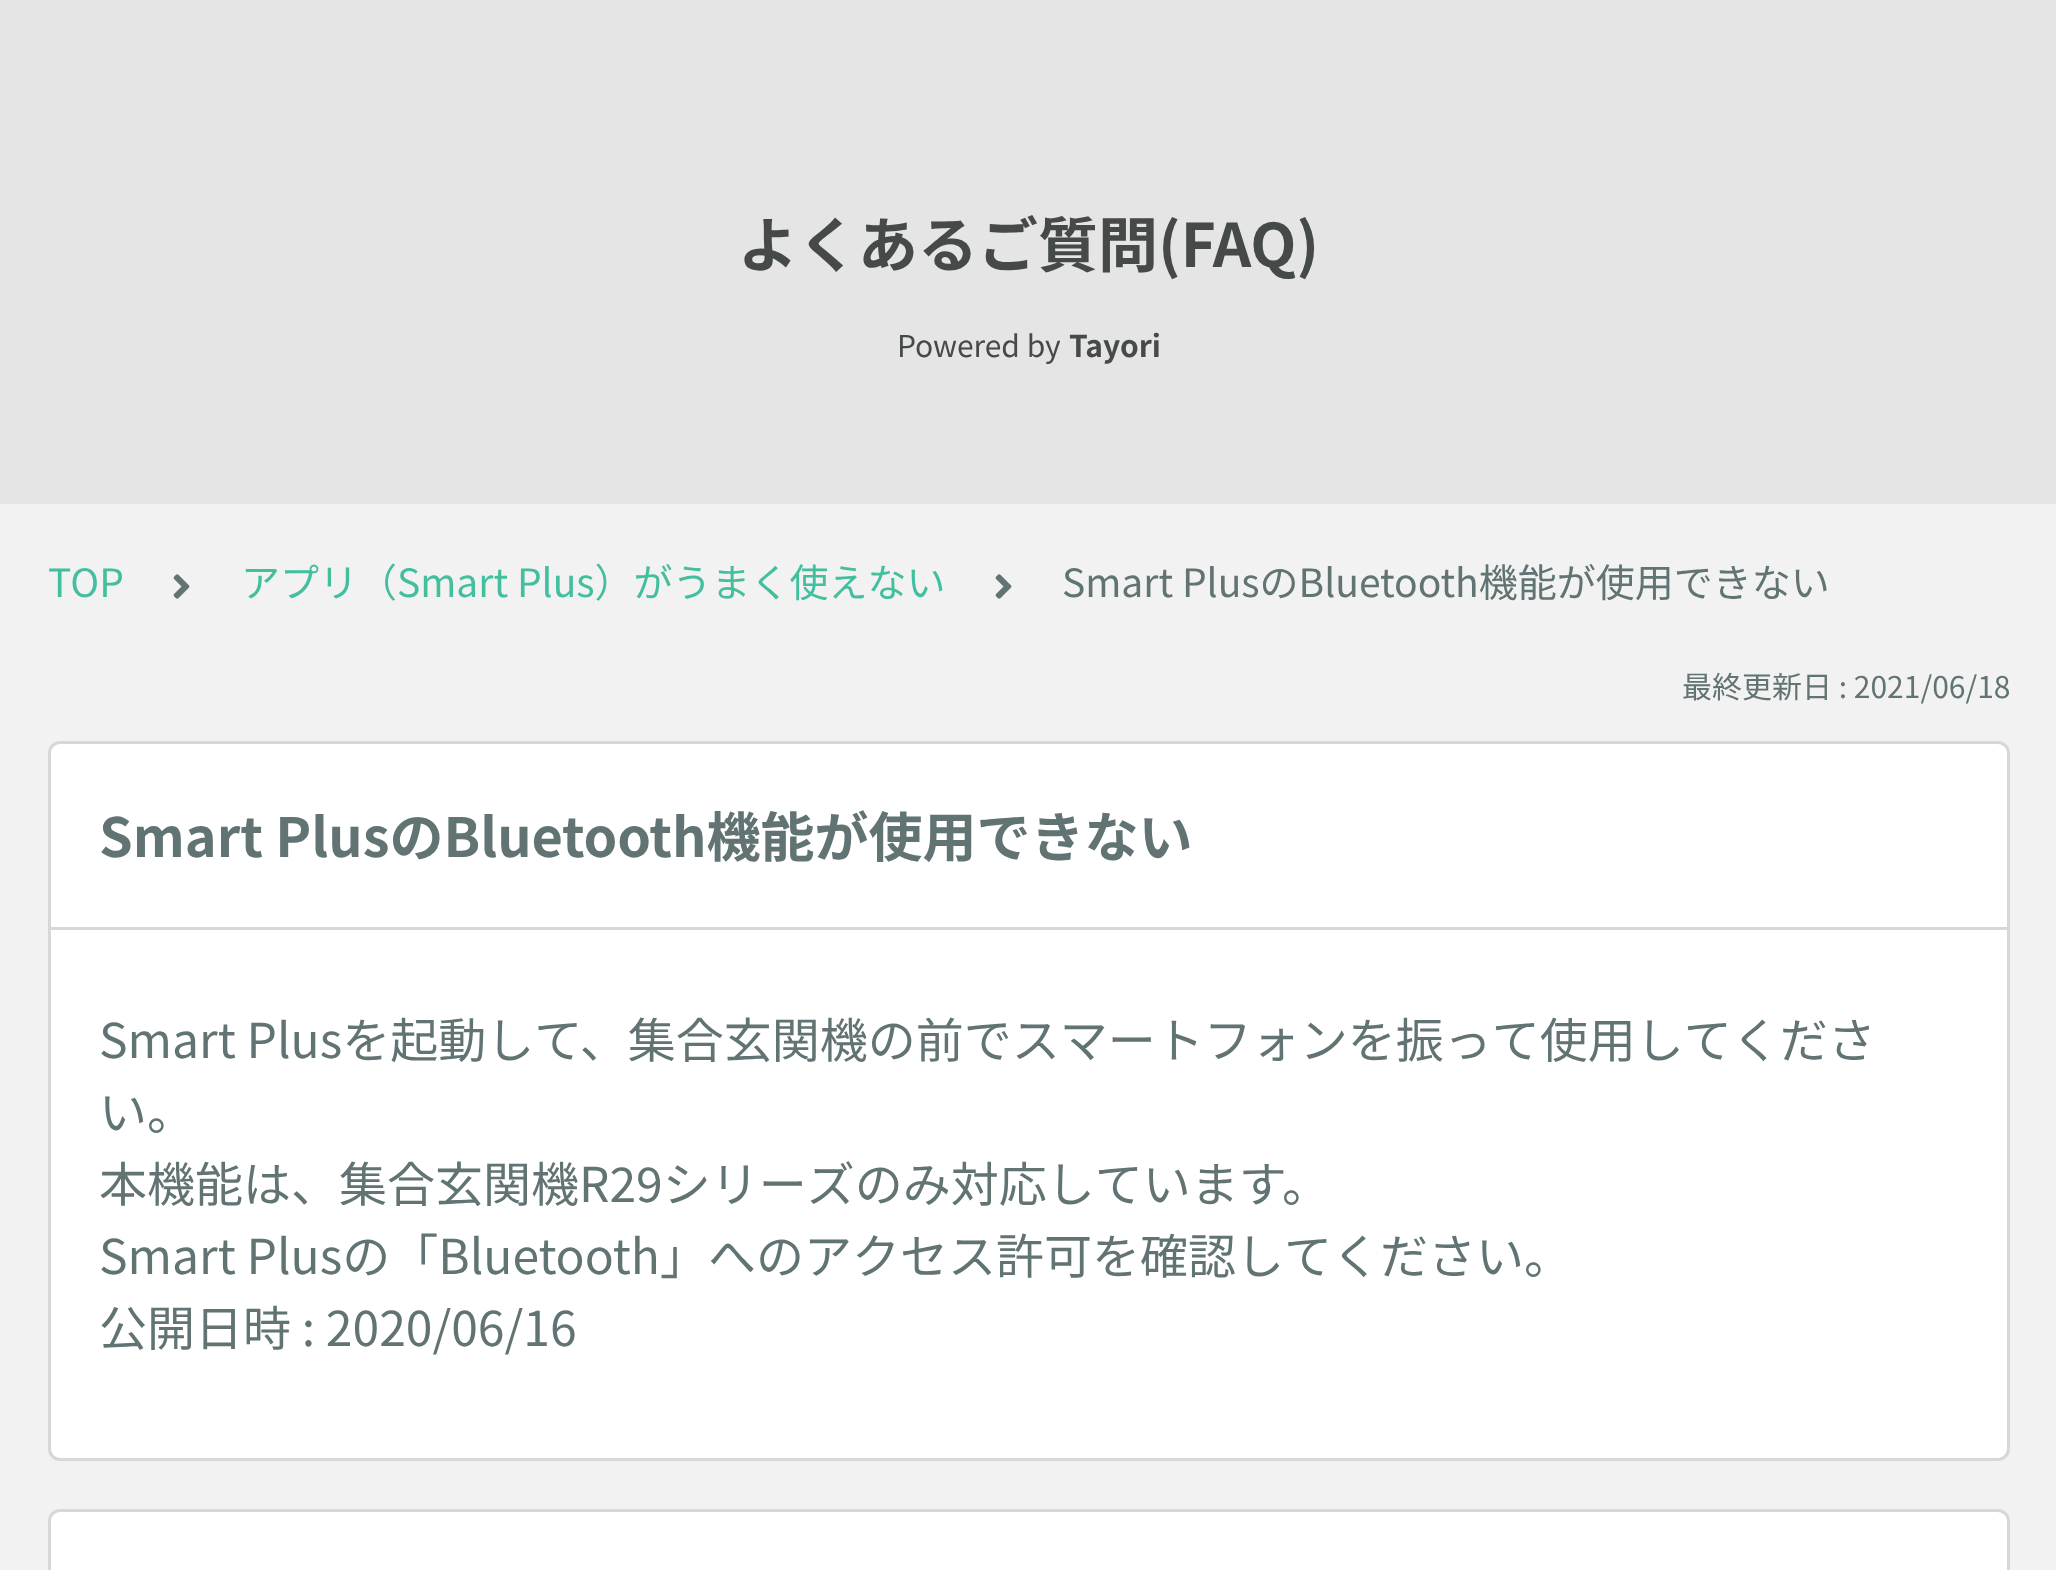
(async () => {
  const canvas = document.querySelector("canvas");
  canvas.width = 2056;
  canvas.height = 1570;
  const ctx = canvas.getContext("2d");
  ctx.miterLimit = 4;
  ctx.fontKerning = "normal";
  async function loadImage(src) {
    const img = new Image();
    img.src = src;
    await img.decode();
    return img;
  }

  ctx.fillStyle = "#f2f2f2";
  ctx.fillRect(0, 0, 2056, 1570);
  ctx.fillStyle = "#e5e5e5";
  ctx.fillRect(0, 0, 2056, 504);
  ctx.drawImage(await loadImage("img/1.png"), 173, 574, 17, 25);
  ctx.drawImage(await loadImage("img/1.png"), 995, 574, 17, 25);
  ctx.fillStyle = "#ffffff";
  ctx.beginPath();
  ctx.roundRect(49.5, 742.5, 1959, 717, 10.5);
  ctx.fill();
  ctx.strokeStyle = "#d7d7d7";
  ctx.lineWidth = 3;
  ctx.stroke();
  ctx.fillStyle = "#d7d7d7";
  ctx.fillRect(51, 927, 1956, 3);
  ctx.fillStyle = "#ffffff";
  ctx.beginPath();
  ctx.roundRect(49.5, 1510.5, 1959, 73, 10.5);
  ctx.fill();
  ctx.stroke();
  ctx.font = "bold 60px Noto Sans JP";
  ctx.fillStyle = "#454948";
  ctx.fillText("よくあるご質問(FAQ)", 738, 267);
  ctx.font = "30px Noto Sans JP";
  ctx.fillText("Powered by", 897, 357);
  ctx.font = "bold 30px Noto Sans JP";
  ctx.fillText("Tayori", 1069, 357);
  ctx.font = "39px Noto Sans JP";
  ctx.fillStyle = "#43bfa0";
  ctx.fillText("TOP", 48, 597);
  ctx.fillText("アプリ（Smart Plus）がうまく使えない", 241, 597);
  ctx.fillStyle = "#627373";
  ctx.fillText("Smart PlusのBluetooth機能が使用できない", 1062, 597);
  ctx.font = "30px Noto Sans JP";
  ctx.fillText("最終更新日 : 2021/06/18", 1682, 698);
  ctx.font = "bold 54px Noto Sans JP";
  ctx.fillText("Smart PlusのBluetooth機能が使用できない", 99, 857);
  ctx.font = "48px Noto Sans JP";
  for (const [text, x, y] of [
    ["Smart Plusを起動して、集合玄関機の前でスマートフォンを振って使用してくださ", 99, 1058],
    ["い。", 99, 1130],
    ["本機能は、集合玄関機R29シリーズのみ対応しています。", 99, 1202],
    ["Smart Plusの「Bluetooth」へのアクセス許可を確認してください。", 99, 1274],
    ["公開日時 : 2020/06/16", 99, 1346],
  ]) {
    ctx.fillText(text, x, y);
  }
})();
